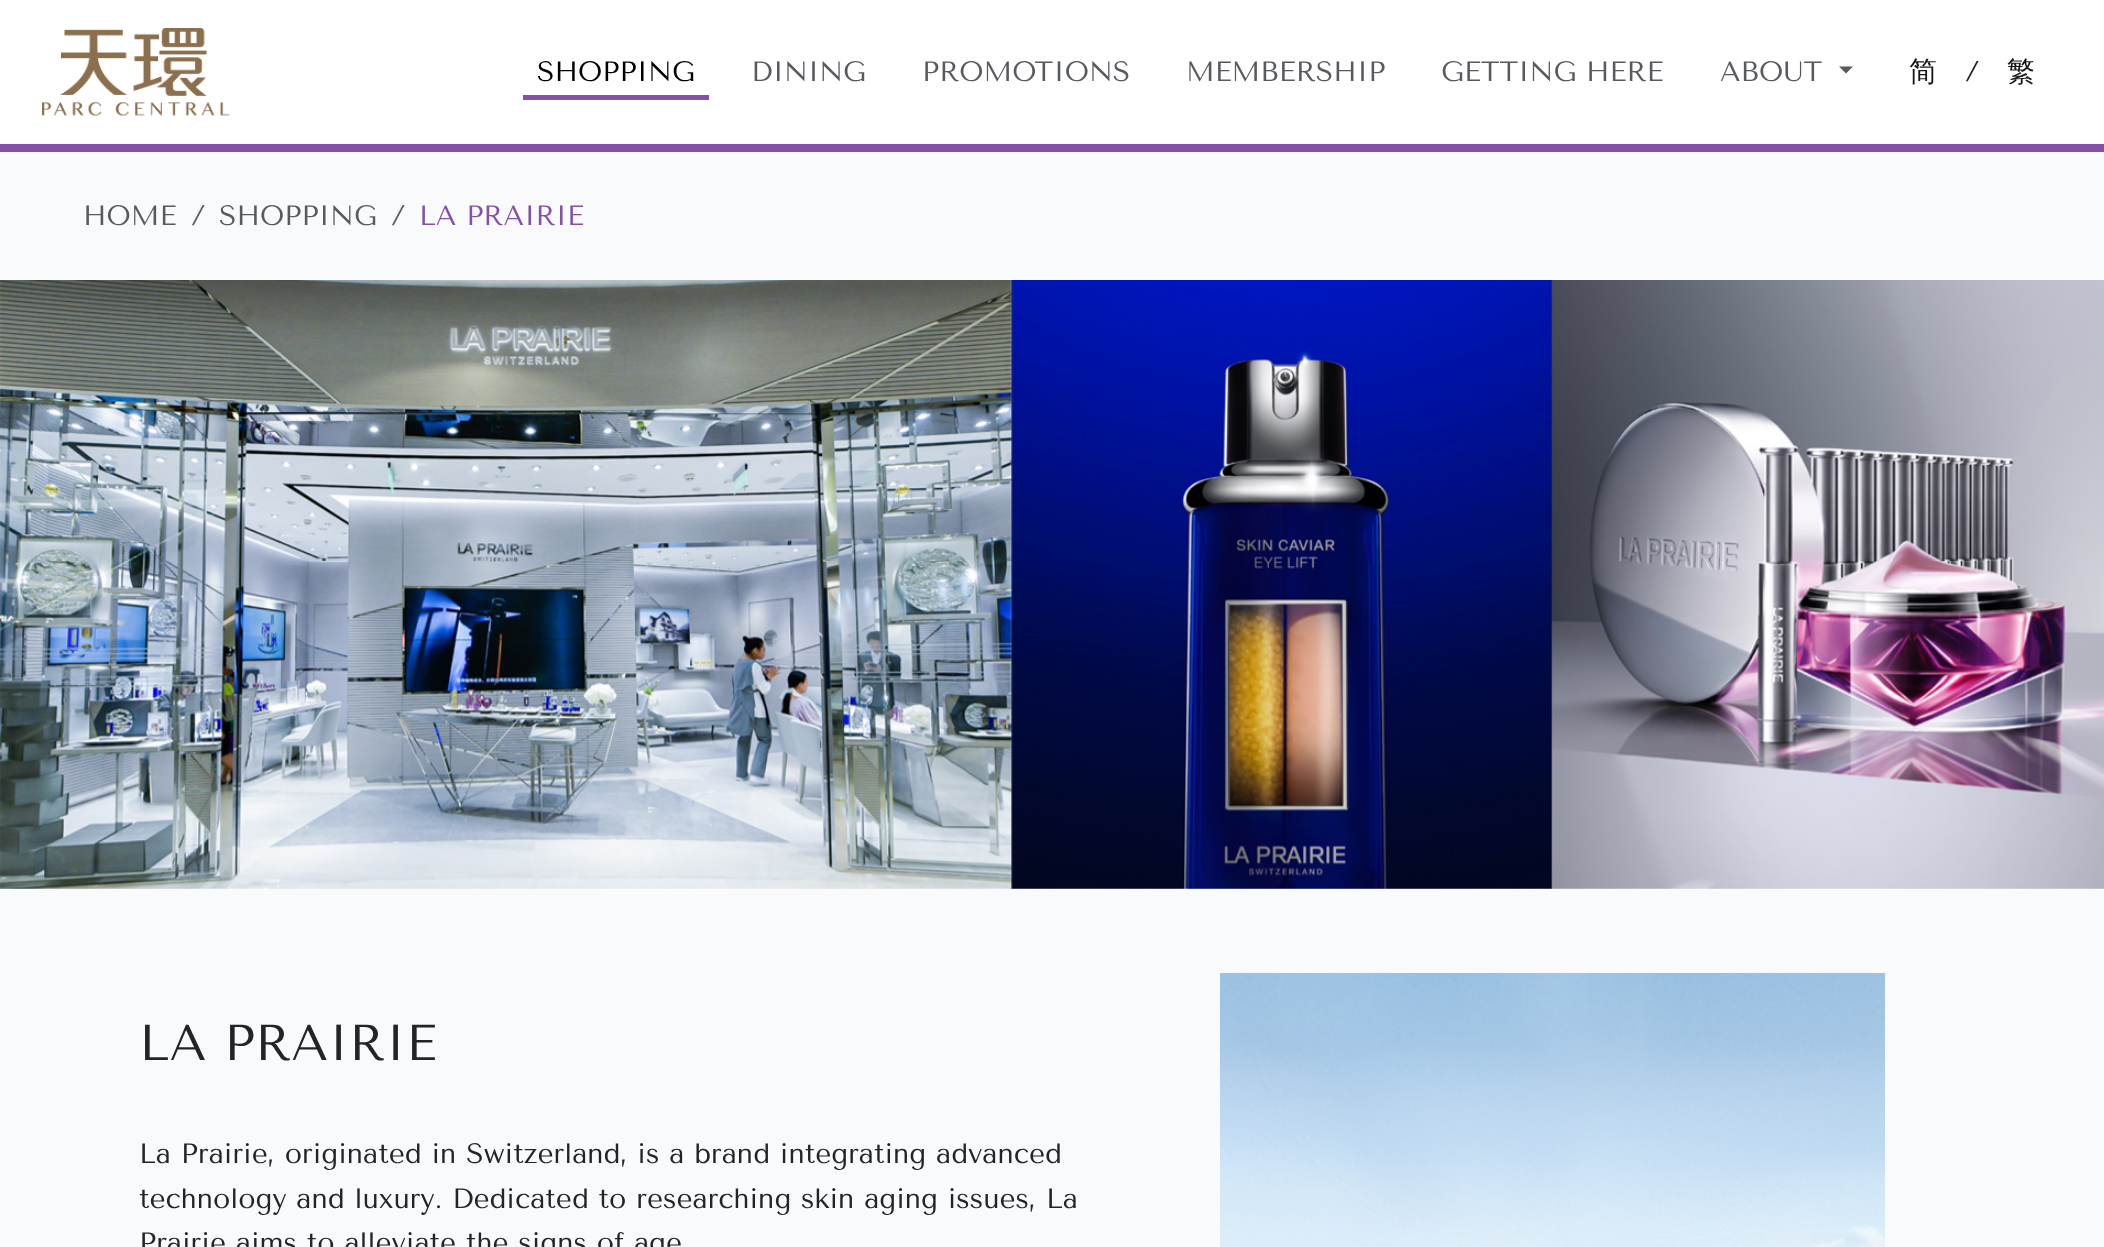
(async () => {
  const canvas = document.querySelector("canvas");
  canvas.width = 2104;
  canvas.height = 1247;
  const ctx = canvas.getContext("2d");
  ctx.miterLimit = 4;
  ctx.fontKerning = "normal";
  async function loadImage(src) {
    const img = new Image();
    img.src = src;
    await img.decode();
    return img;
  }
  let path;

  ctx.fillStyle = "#f8fafc";
  ctx.fillRect(0, 0, 2104, 1247);
  ctx.fillStyle = "#ffffff";
  ctx.fillRect(0, 0, 2104, 144);
  ctx.fillStyle = "#8451a7";
  ctx.fillRect(0, 144, 2104, 8);
  ctx.drawImage(await loadImage("img/1.png"), 42, 28, 188, 88);
  ctx.fillRect(523, 95, 186, 5);
  ctx.fillStyle = "#595959";
  path = new Path2D("M1839 66.5H1853L1846 73.5Z");
  ctx.fill(path);
  ctx.drawImage(await loadImage("img/2.png"), 0, 280, 2104, 609);
  ctx.drawImage(await loadImage("img/3.png"), 1220, 973, 665, 274);
  ctx.font = "28px Tenor Sans";
  ctx.fillStyle = "#000000";
  ctx.fillText("SHOPPING", 537, 81);
  ctx.fillStyle = "#575a5e";
  for (const [text, x, y] of [
    ["DINING", 751, 81],
    ["PROMOTIONS", 922, 81],
    ["MEMBERSHIP", 1186, 81],
    ["GETTING HERE", 1441, 81],
    ["ABOUT", 1720, 81],
  ]) {
    ctx.fillText(text, x, y);
  }
  ctx.font = "500 28px WenQuanYi Zen Hei";
  ctx.fillStyle = "#141414";
  ctx.fillText("简", 1909, 81);
  ctx.font = "28px Tenor Sans";
  ctx.fillStyle = "#212529";
  ctx.fillText("/", 1965, 81);
  ctx.font = "500 28px WenQuanYi Zen Hei";
  ctx.fillStyle = "#141414";
  ctx.fillText("繁", 2007, 81);
  ctx.font = "28px Tenor Sans";
  ctx.fillStyle = "#575a5e";
  for (const [text, x, y] of [
    ["HOME", 83, 225],
    ["/", 191, 225],
    ["SHOPPING", 219, 225],
    ["/", 391, 225],
  ]) {
    ctx.fillText(text, x, y);
  }
  ctx.fillStyle = "#8451a7";
  ctx.fillText("LA PRAIRIE", 419, 225);
  ctx.font = "50.5px Tenor Sans";
  ctx.fillStyle = "#212529";
  ctx.fillText("LA PRAIRIE", 139, 1060);
  ctx.font = "28px Tenor Sans";
  for (const [text, x, y] of [
    ["La Prairie, originated in Switzerland, is a brand integrating advanced", 139, 1163],
    ["technology and luxury. Dedicated to researching skin aging issues, La", 139, 1208],
    ["Prairie aims to alleviate the signs of age", 139, 1252],
  ]) {
    ctx.fillText(text, x, y);
  }
})();
